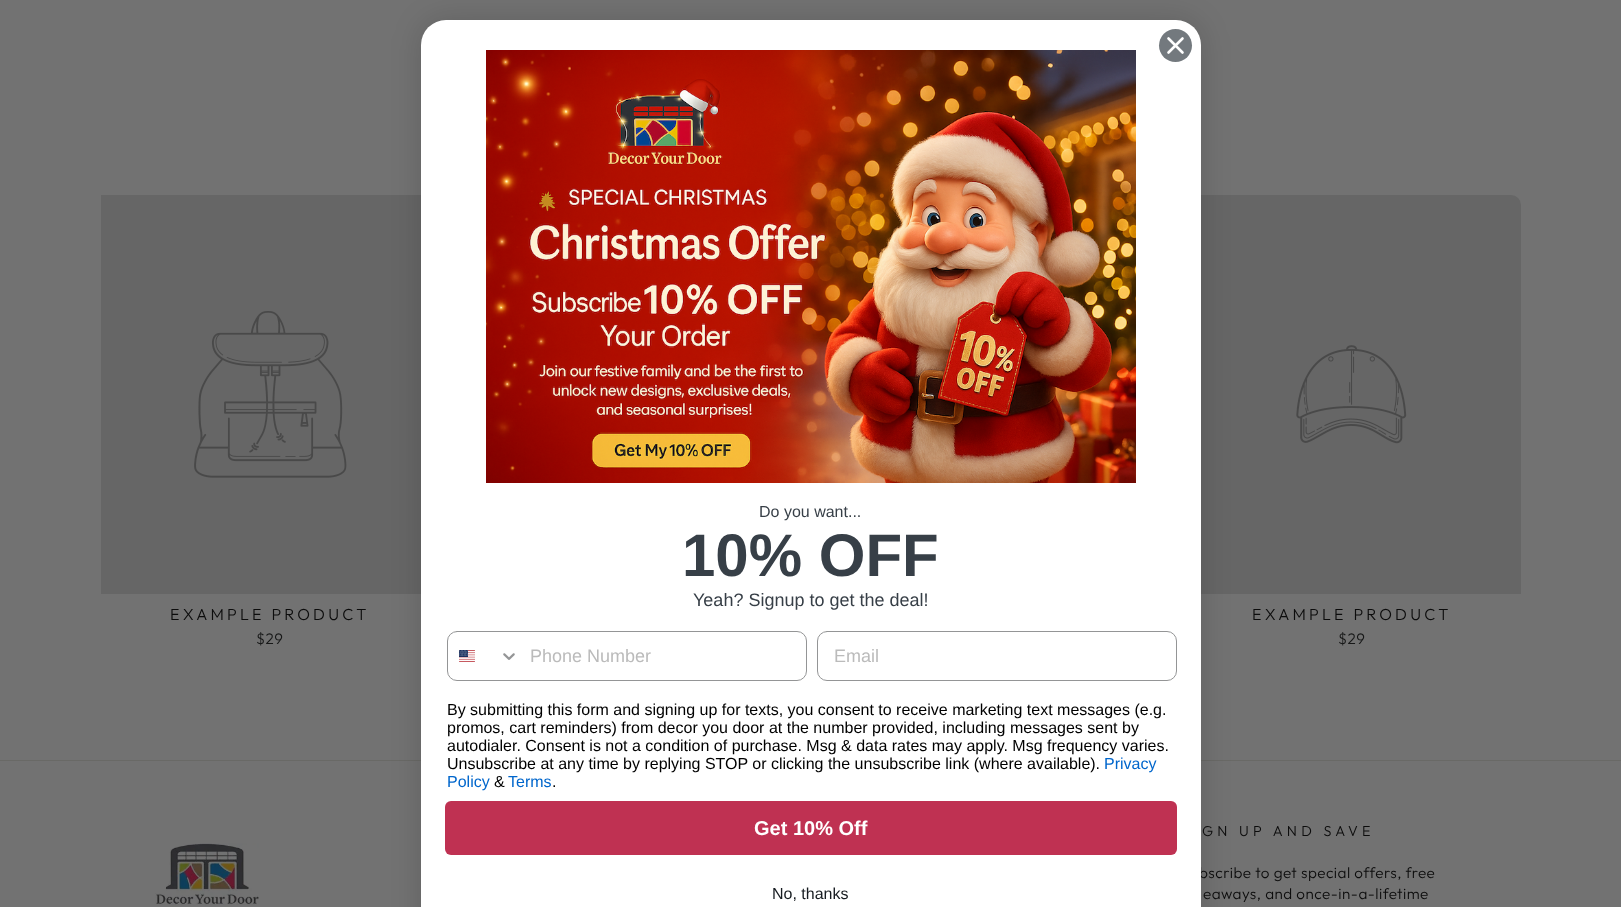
(async () => {
  const canvas = document.querySelector("canvas");
  canvas.width = 1621;
  canvas.height = 907;
  const ctx = canvas.getContext("2d");
  ctx.miterLimit = 4;
  ctx.fontKerning = "normal";
  async function loadImage(src) {
    const img = new Image();
    img.src = src;
    await img.decode();
    return img;
  }
  let path;

  ctx.fillStyle = "#727272";
  ctx.fillRect(0, 0, 1621, 907);
  ctx.fillStyle = "#666666";
  ctx.fillRect(101, 195, 320, 399);
  ctx.beginPath();
  ctx.roundRect(1182, 195, 339, 399, [0, 10, 0, 0]);
  ctx.fill();
  ctx.fillStyle = "#696966";
  ctx.fillRect(0, 760, 1621, 1);
  ctx.fillStyle = "rgba(0, 0, 0, 0.15)";
  ctx.filter = "blur(15px)";
  ctx.beginPath();
  ctx.roundRect(421, 20, 780, 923, 25);
  ctx.fill();
  ctx.filter = "none";
  ctx.drawImage(await loadImage("img/4.png"), 194, 311, 153, 167);
  ctx.drawImage(await loadImage("img/5.png"), 1296, 345, 111, 99);
  ctx.drawImage(await loadImage("img/6.png"), 155, 843, 104, 64);
  ctx.letterSpacing = "3.25px";
  ctx.font = "300 16px Outfit";
  ctx.fillStyle = "#0c0c0c";
  ctx.fillText("EXAMPLE PRODUCT", 170, 620);
  ctx.letterSpacing = "0.45px";
  ctx.font = "300 15.25px Outfit";
  ctx.fillStyle = "#171818";
  ctx.fillText("$29", 256, 644);
  ctx.letterSpacing = "3.25px";
  ctx.font = "300 16px Outfit";
  ctx.fillStyle = "#0c0c0c";
  ctx.fillText("EXAMPLE PRODUCT", 1252, 620);
  ctx.letterSpacing = "0.45px";
  ctx.font = "300 15.25px Outfit";
  ctx.fillStyle = "#171818";
  ctx.fillText("$29", 1338, 644);
  ctx.letterSpacing = "4.25px";
  ctx.font = "300 14.4px Outfit";
  ctx.fillStyle = "#0c0c0c";
  ctx.fillText("GN UP AND SAVE", 1202, 836);
  ctx.letterSpacing = "0.45px";
  ctx.font = "300 15.25px Outfit";
  ctx.fillText("bscribe to get special offers, free", 1199, 878);
  ctx.fillStyle = "#ffffff";
  ctx.beginPath();
  ctx.roundRect(421, 20, 780, 887, [25, 25, 0, 0]);
  ctx.fill();
  ctx.fillStyle = "#73797e";
  ctx.beginPath();
  ctx.arc(1175.5, 45.5, 16.5, 0, Math.PI * 2);
  ctx.fill();
  path = new Path2D("M1168.5 38.5L1182.5 52.5M1168.5 52.5L1182.5 38.5Z");
  ctx.strokeStyle = "#ffffff";
  ctx.lineWidth = 2.6;
  ctx.lineCap = "round";
  ctx.lineJoin = "round";
  ctx.stroke(path);
  ctx.letterSpacing = "0px";
  ctx.font = "16px Liberation Sans";
  ctx.fillStyle = "#161b20";
  ctx.fillText("No, thanks", 772, 899);
  ctx.fillStyle = "#bf3152";
  ctx.beginPath();
  ctx.roundRect(445, 801, 732, 54, 6);
  ctx.fill();
  ctx.font = "bold 20px Liberation Sans";
  ctx.fillStyle = "#ffffff";
  ctx.fillText("Get 10% Off", 754, 835);
  ctx.font = "16px Liberation Sans";
  ctx.fillStyle = "#000000";
  ctx.fillText(".", 552, 787);
  ctx.fillStyle = "#0066cc";
  ctx.fillText("Terms", 508, 787);
  ctx.fillStyle = "#000000";
  ctx.fillText("&", 494, 787);
  ctx.fillStyle = "#0066cc";
  ctx.fillText("Policy", 447, 787);
  ctx.fillText("Privacy", 1104, 769);
  ctx.fillStyle = "#000000";
  for (const [text, x, y] of [
    ["Unsubscribe at any time by replying STOP or clicking the unsubscribe link (where available).", 447, 769],
    ["autodialer. Consent is not a condition of purchase. Msg & data rates may apply. Msg frequency varies.", 447, 751],
    ["promos, cart reminders) from decor you door at the number provided, including messages sent by", 447, 733],
    ["By submitting this form and signing up for texts, you consent to receive marketing text messages (e.g.", 447, 715],
  ]) {
    ctx.fillText(text, x, y);
  }
  ctx.beginPath();
  ctx.roundRect(817.5, 631.5, 359, 49, 9.5);
  ctx.strokeStyle = "#949596";
  ctx.lineWidth = 1;
  ctx.lineJoin = "miter";
  ctx.stroke();
  ctx.font = "18px Liberation Sans";
  ctx.fillStyle = "#bbbbbb";
  ctx.fillText("Email", 834, 662);
  ctx.beginPath();
  ctx.roundRect(447.5, 631.5, 359, 49, 9.5);
  ctx.stroke();
  ctx.drawImage(await loadImage("img/3.png"), 503, 653, 12, 7);
  ctx.fillText("Phone Number", 530, 662);
  ctx.drawImage(await loadImage("img/2.png"), 459, 650, 16, 12);
  ctx.fillStyle = "#373f47";
  ctx.fillText("Yeah? Signup to get the deal!", 693, 606);
  ctx.font = "bold 60px Liberation Sans";
  ctx.fillText("10% OFF", 682, 576);
  ctx.font = "16px Liberation Sans";
  ctx.fillText("Do you want...", 759, 517);
  ctx.drawImage(await loadImage("img/1.png"), 486, 50, 650, 433);
  ctx.letterSpacing = "0.45px";
  ctx.font = "300 15.25px Outfit";
  ctx.fillStyle = "#0c0c0c";
  ctx.fillText("eaways, and once-in-a-lifetime", 1203, 899);
})();
